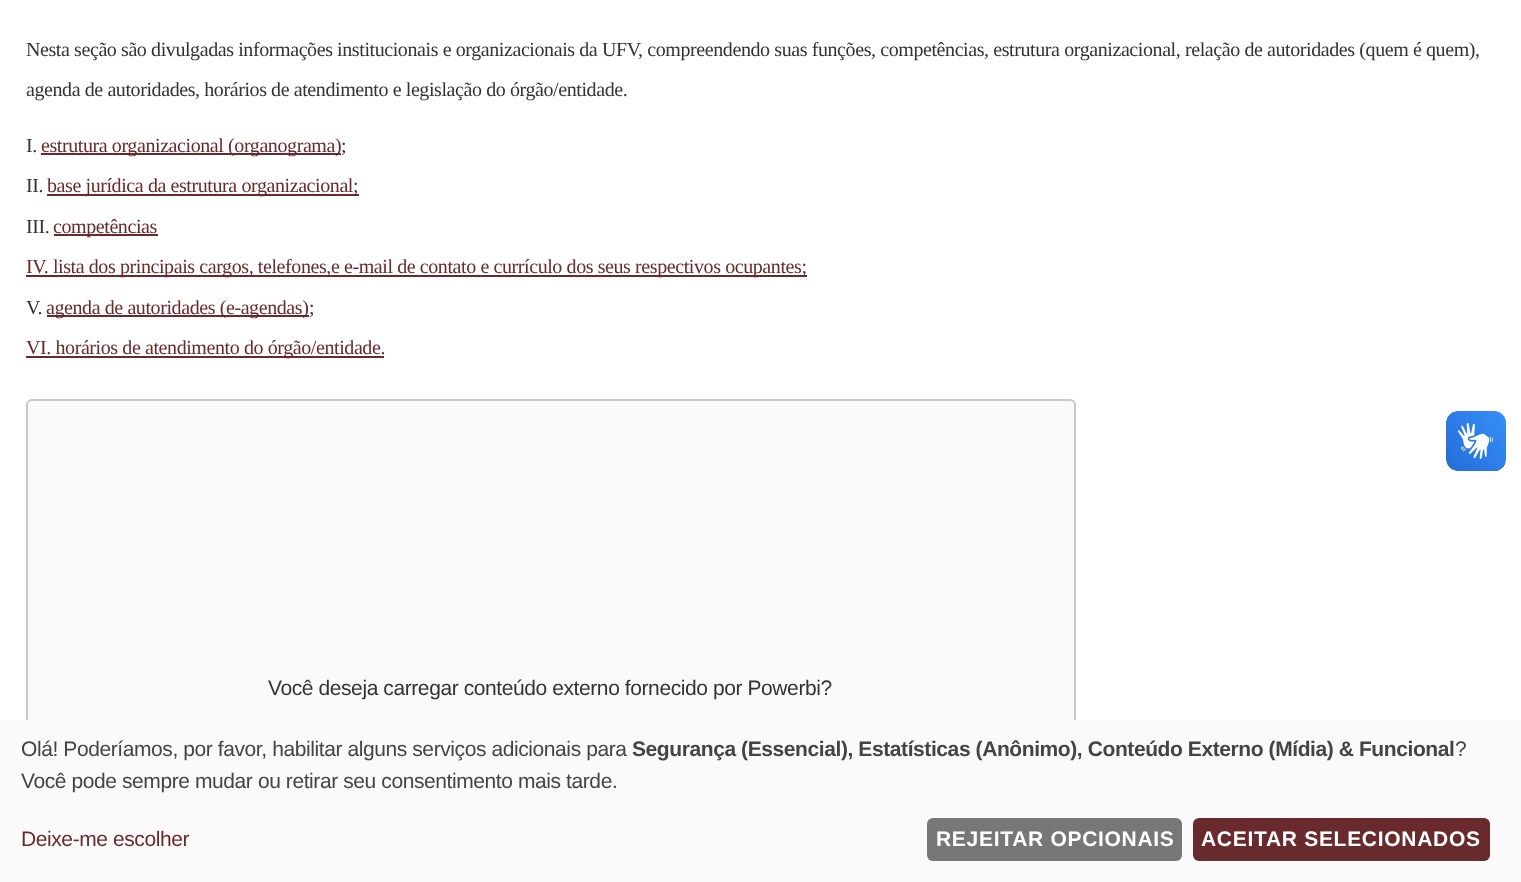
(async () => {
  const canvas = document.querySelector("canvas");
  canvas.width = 1521;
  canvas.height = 882;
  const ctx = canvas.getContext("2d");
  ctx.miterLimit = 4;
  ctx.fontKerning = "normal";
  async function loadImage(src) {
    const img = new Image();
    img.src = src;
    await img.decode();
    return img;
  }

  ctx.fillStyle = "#ffffff";
  ctx.fillRect(0, 0, 1521, 882);
  for (const [x, y, w, h, color] of [
    [41, 153, 300, 2, "#682a2c"],
    [47, 194, 312, 2, "#682a2c"],
    [54, 234, 104, 2, "#682a2c"],
    [26, 275, 781, 2, "#682a2c"],
    [47, 315, 262, 2, "#682a2c"],
    [26, 356, 358, 2, "#682a2c"],
  ]) {
    ctx.fillStyle = color;
    ctx.fillRect(x, y, w, h);
  }
  ctx.fillStyle = "#fafafa";
  ctx.beginPath();
  ctx.roundRect(27, 400, 1048, 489, 5);
  ctx.fill();
  ctx.strokeStyle = "#c8c8c8";
  ctx.lineWidth = 2;
  ctx.stroke();
  ctx.drawImage(await loadImage("img/1.png"), 1446, 411, 60, 60);
  ctx.drawImage(await loadImage("img/2.png"), 1446, 411, 60, 60);
  ctx.fillRect(0, 720, 1521, 162);
  ctx.fillStyle = "#777777";
  ctx.beginPath();
  ctx.roundRect(927, 818, 255, 43, 6);
  ctx.fill();
  ctx.fillStyle = "#682a2c";
  ctx.beginPath();
  ctx.roundRect(1193, 818, 297, 43, 6);
  ctx.fill();
  ctx.letterSpacing = "-0.41px";
  ctx.font = "20px Liberation Serif";
  ctx.fillStyle = "#333333";
  for (const [text, x, y] of [
    ["Nesta seção são divulgadas informações institucionais e organizacionais da UFV, compreendendo suas funções, competências, estrutura organizacional, relação de autoridades (quem é quem),", 26, 56],
    ["agenda de autoridades, horários de atendimento e legislação do órgão/entidade.", 26, 96],
    ["I.", 26, 152],
  ]) {
    ctx.fillText(text, x, y);
  }
  ctx.fillStyle = "#682a2c";
  ctx.fillText("estrutura organizacional (organograma)", 41, 152);
  ctx.fillStyle = "#333333";
  ctx.fillText(";", 341, 152);
  ctx.fillText("II.", 26, 192);
  ctx.fillStyle = "#682a2c";
  ctx.fillText("base jurídica da estrutura organizacional;", 47, 192);
  ctx.fillStyle = "#333333";
  ctx.fillText("III.", 26, 233);
  ctx.fillStyle = "#682a2c";
  ctx.fillText("competências", 53, 233);
  ctx.fillText("IV. lista dos principais cargos, telefones,e e-mail de contato e currículo dos seus respectivos ocupantes;", 26, 273);
  ctx.fillStyle = "#333333";
  ctx.fillText("V.", 26, 314);
  ctx.fillStyle = "#682a2c";
  ctx.fillText("agenda de autoridades (e-agendas)", 46, 314);
  ctx.fillStyle = "#333333";
  ctx.fillText(";", 309, 314);
  ctx.fillStyle = "#682a2c";
  ctx.fillText("VI. horários de atendimento do órgão/entidade.", 26, 354);
  ctx.font = "21px Liberation Sans";
  ctx.fillStyle = "#333333";
  ctx.fillText("Você deseja carregar conteúdo externo fornecido por Powerbi?", 268, 695);
  ctx.fillStyle = "#444444";
  ctx.fillText("Olá! Poderíamos, por favor, habilitar alguns serviços adicionais para", 21, 756);
  ctx.font = "bold 21px Liberation Sans";
  ctx.fillText("Segurança (Essencial), Estatísticas (Anônimo), Conteúdo Externo (Mídia) & Funcional", 632, 756);
  ctx.font = "21px Liberation Sans";
  ctx.fillText("?", 1455, 756);
  ctx.fillText("Você pode sempre mudar ou retirar seu consentimento mais tarde.", 21, 788);
  ctx.fillStyle = "#682a2c";
  ctx.fillText("Deixe-me escolher", 21, 846);
  ctx.letterSpacing = "0.7px";
  ctx.font = "bold 21px Liberation Sans";
  ctx.fillStyle = "#ffffff";
  ctx.fillText("REJEITAR OPCIONAIS", 936, 846);
  ctx.fillText("ACEITAR SELECIONADOS", 1201, 846);
})();
